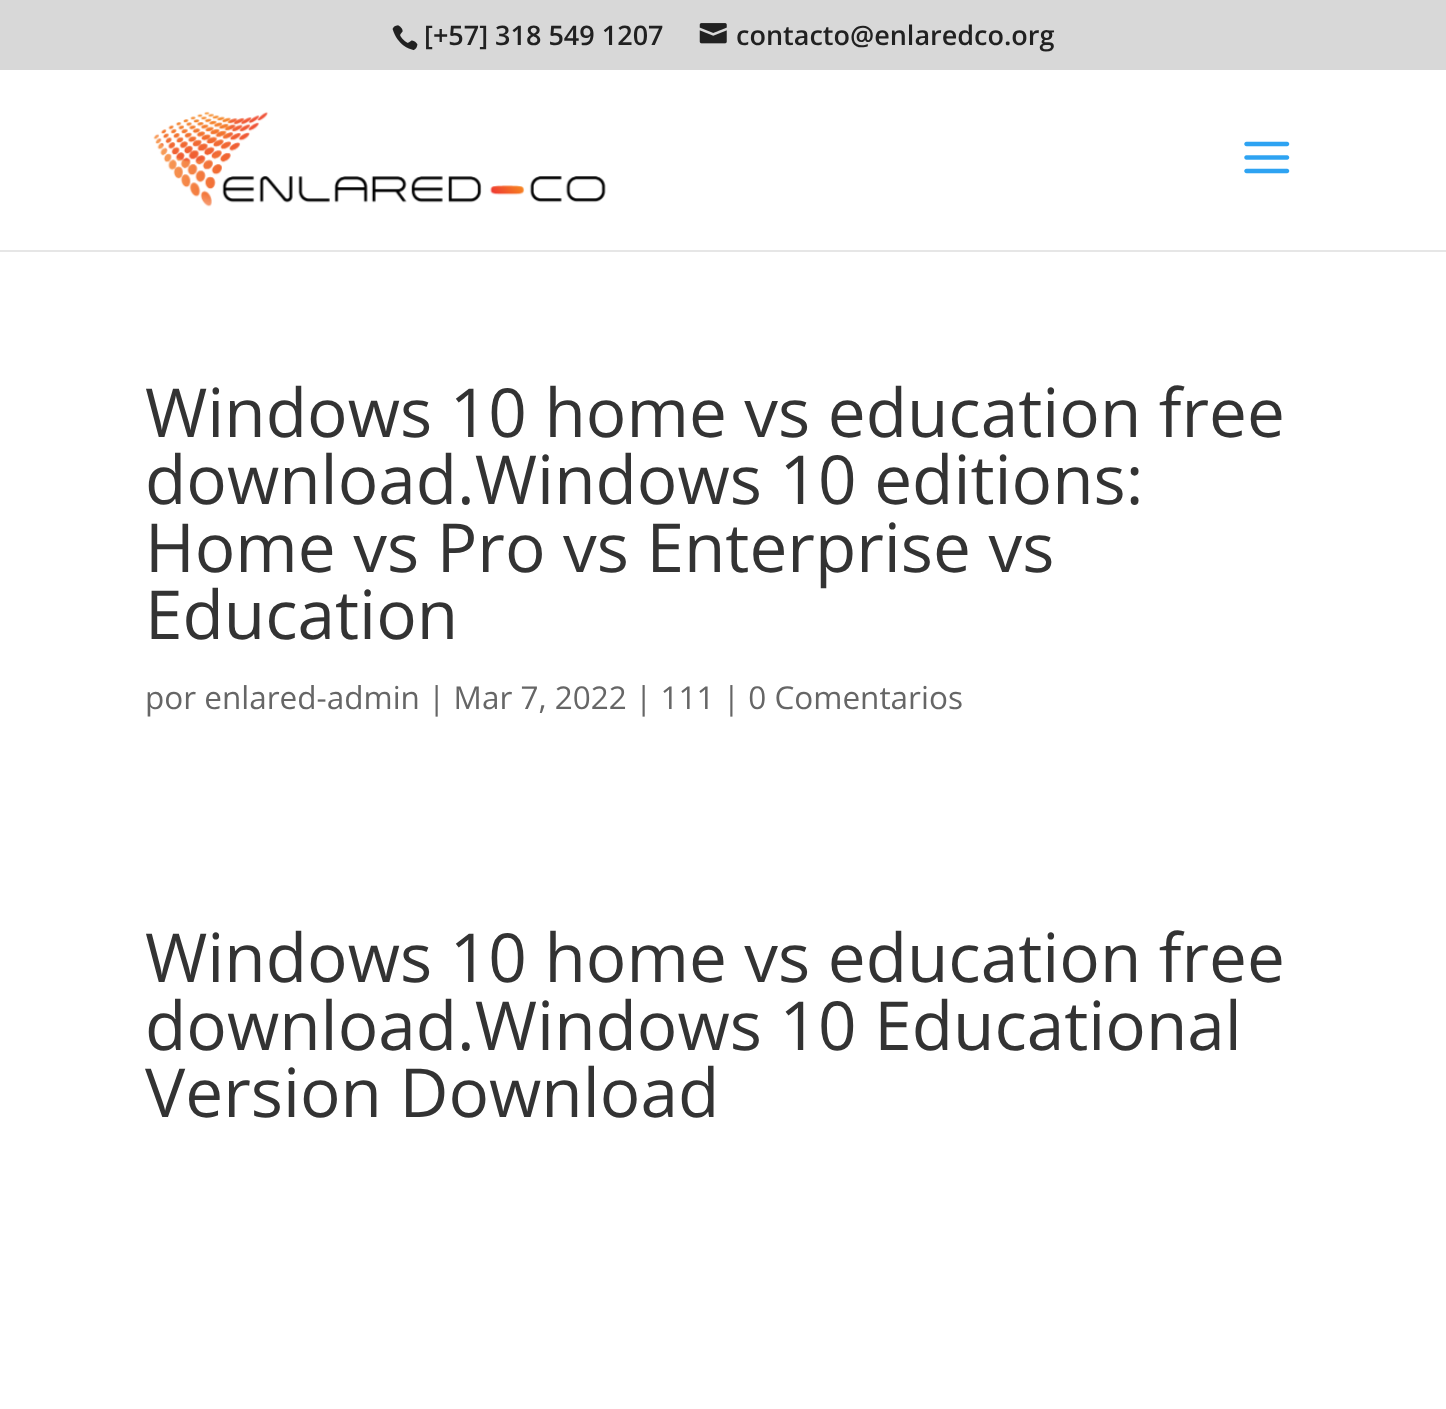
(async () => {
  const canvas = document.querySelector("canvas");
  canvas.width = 1446;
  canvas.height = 1409;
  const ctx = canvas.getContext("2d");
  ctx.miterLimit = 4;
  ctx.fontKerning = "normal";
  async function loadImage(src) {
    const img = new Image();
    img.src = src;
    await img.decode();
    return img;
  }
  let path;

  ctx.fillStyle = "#ffffff";
  ctx.fillRect(0, 0, 1446, 1409);
  ctx.fillStyle = "#d8d8d8";
  ctx.fillRect(0, 0, 1446, 70);
  ctx.drawImage(await loadImage("img/1.png"), 392, 25, 26, 26);
  ctx.drawImage(await loadImage("img/2.png"), 699, 23, 28, 21);
  ctx.fillStyle = "#e6e6e6";
  path = new Path2D("M0 250V252H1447V72V250Z");
  ctx.fill(path);
  ctx.drawImage(await loadImage("img/3.png"), 153, 111, 453, 96);
  ctx.drawImage(await loadImage("img/4.png"), 1244, 141, 46, 33);
  ctx.font = "600 27px Open Sans";
  ctx.fillStyle = "#212121";
  ctx.fillText("[+57] 318 549 1207", 424, 45);
  ctx.fillText("contacto@enlaredco.org", 736, 45);
  ctx.font = "67.5px Open Sans";
  ctx.fillStyle = "#333333";
  for (const [text, x, y] of [
    ["Windows 10 home vs education free", 145, 437],
    ["download.Windows 10 editions:", 145, 504],
    ["Home vs Pro vs Enterprise vs", 145, 572],
    ["Education", 145, 639],
  ]) {
    ctx.fillText(text, x, y);
  }
  ctx.font = "31.5px Open Sans";
  ctx.fillStyle = "#666666";
  ctx.fillText("por enlared-admin | Mar 7, 2022 | 111 | 0 Comentarios", 145, 709);
  ctx.font = "67.5px Open Sans";
  ctx.fillStyle = "#333333";
  for (const [text, x, y] of [
    ["Windows 10 home vs education free", 145, 982],
    ["download.Windows 10 Educational", 145, 1050],
    ["Version Download", 145, 1117],
  ]) {
    ctx.fillText(text, x, y);
  }
})();
